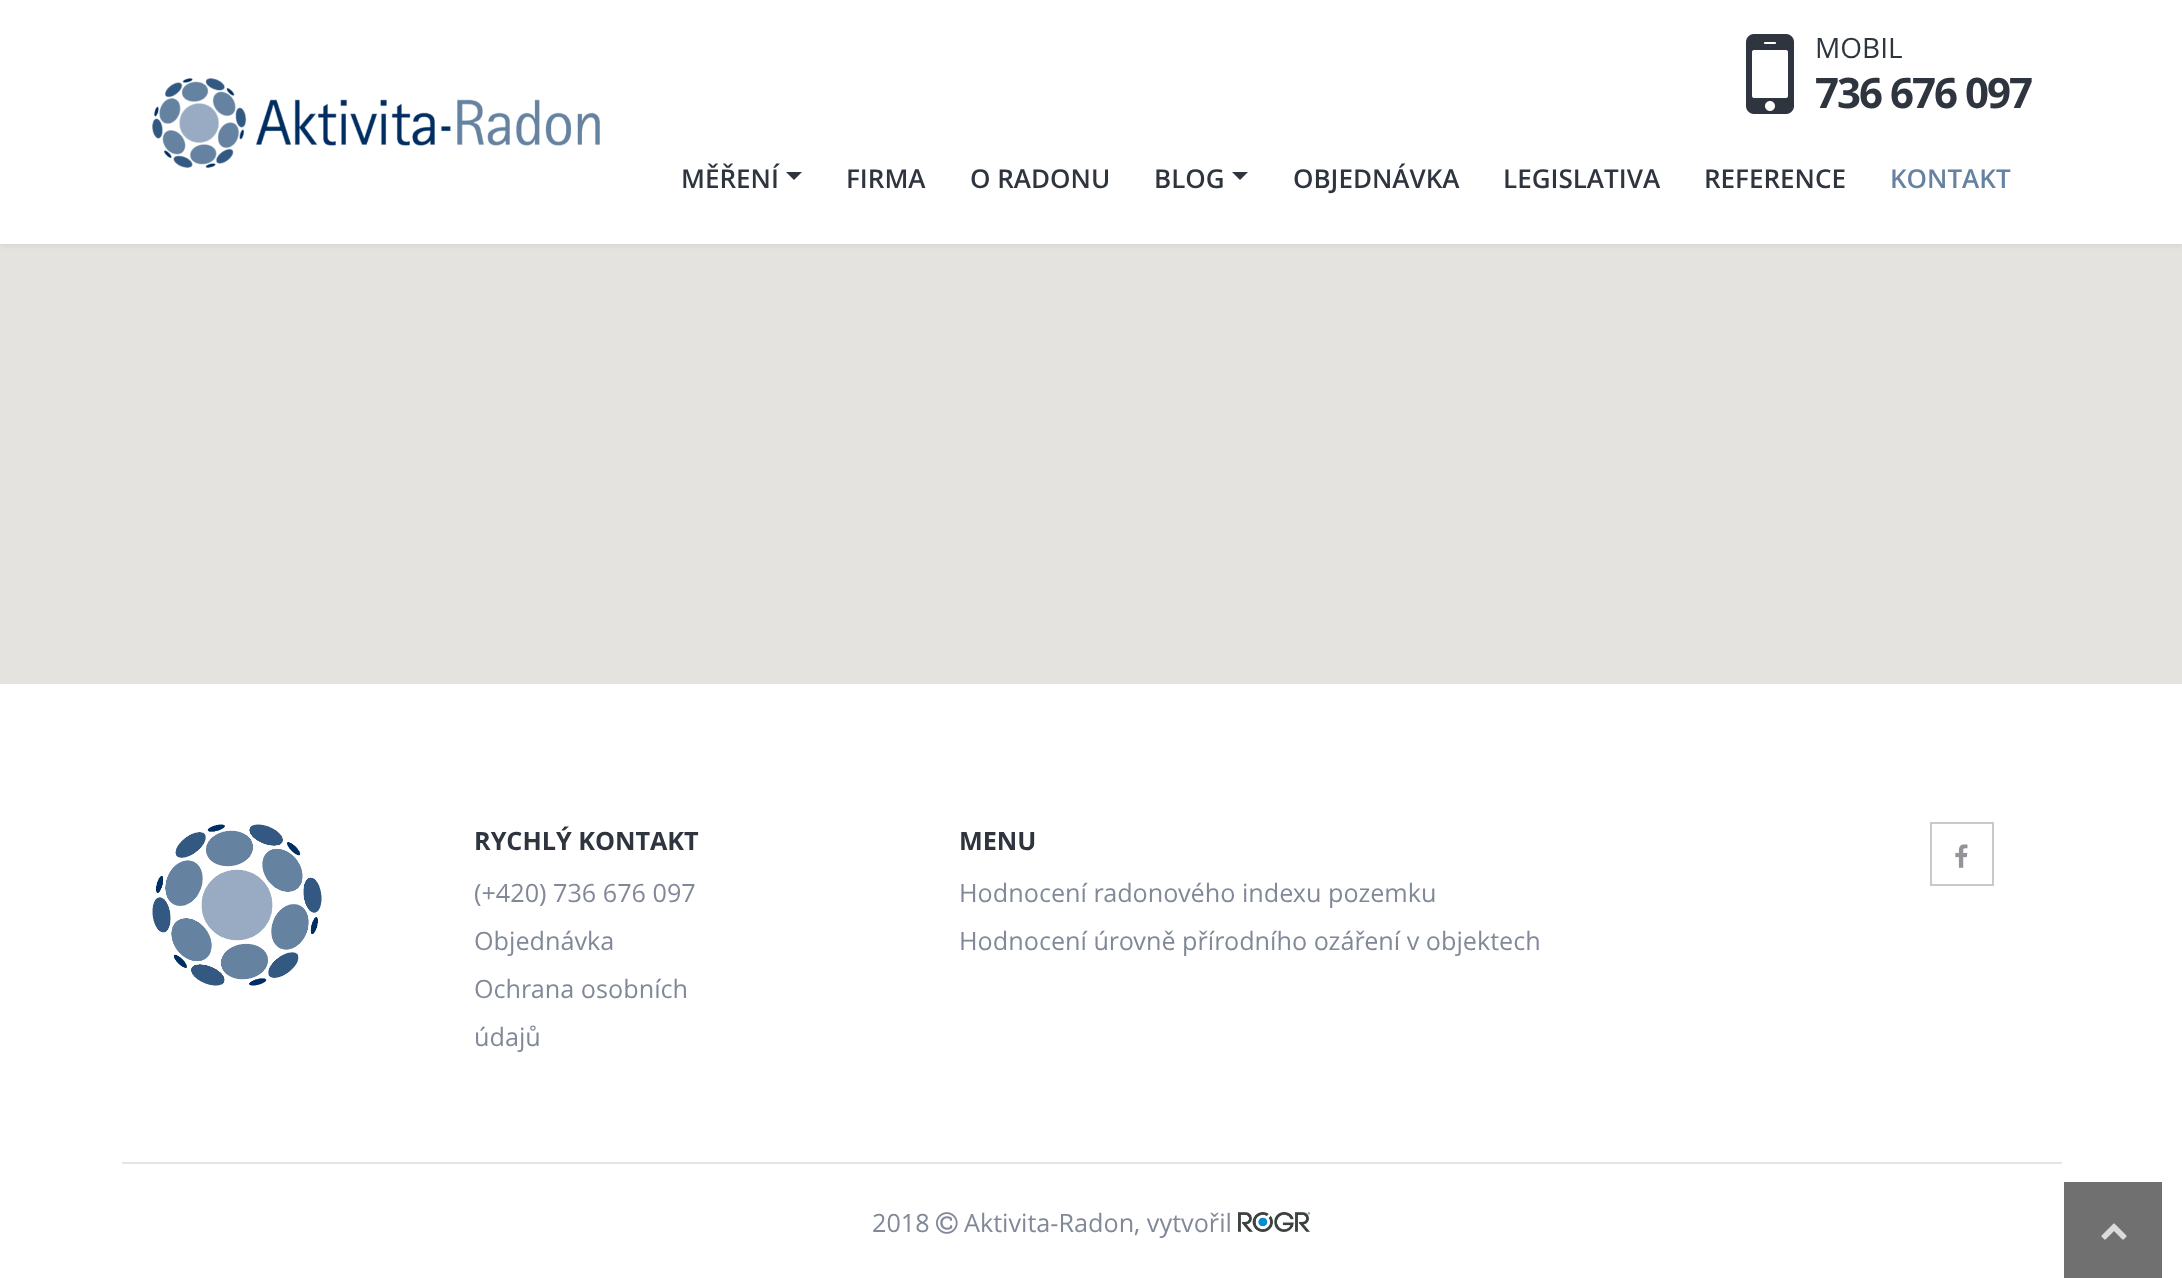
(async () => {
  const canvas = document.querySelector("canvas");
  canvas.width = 2182;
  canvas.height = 1278;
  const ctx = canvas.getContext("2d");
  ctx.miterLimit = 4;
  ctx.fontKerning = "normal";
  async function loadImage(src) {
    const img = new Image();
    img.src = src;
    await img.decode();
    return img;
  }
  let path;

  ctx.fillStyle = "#ffffff";
  ctx.fillRect(0, 0, 2182, 1278);
  ctx.fillStyle = "#e5e3df";
  ctx.fillRect(0, 244, 2182, 440);
  ctx.fillStyle = "rgba(0, 0, 0, 0.1)";
  ctx.filter = "blur(3px)";
  ctx.beginPath();
  ctx.rect(0, 0, 2182, 244);
  ctx.fill();
  ctx.filter = "none";
  ctx.fillStyle = "#ffffff";
  ctx.fillRect(0, 0, 2182, 244);
  ctx.drawImage(await loadImage("img/1.png"), 152, 78, 448, 90);
  ctx.drawImage(await loadImage("img/2.png"), 1746, 34, 48, 80);
  ctx.fillStyle = "#2e353e";
  path = new Path2D("M786 172H802L794 180Z");
  ctx.fill(path);
  path = new Path2D("M1232 172H1248L1240 180Z");
  ctx.fill(path);
  ctx.drawImage(await loadImage("img/3.png"), 152, 824, 170, 162);
  ctx.strokeStyle = "#c9c9cc";
  ctx.lineWidth = 2;
  ctx.strokeRect(1931, 823, 62, 62);
  ctx.drawImage(await loadImage("img/4.png"), 1955, 844, 13, 24);
  ctx.fillStyle = "#e4e4e4";
  ctx.fillRect(122, 1162, 1940, 2);
  ctx.drawImage(await loadImage("img/5.png"), 936, 1212, 22, 22);
  ctx.drawImage(await loadImage("img/6.png"), 1238, 1212, 72, 20);
  ctx.fillStyle = "#707070";
  ctx.fillRect(2064, 1182, 98, 96);
  ctx.drawImage(await loadImage("img/7.png"), 2101, 1223, 26, 17);
  ctx.font = "28px Open Sans";
  ctx.fillStyle = "#2e353e";
  ctx.fillText("MOBIL", 1815, 58);
  ctx.letterSpacing = "-2px";
  ctx.font = "bold 42px Open Sans";
  ctx.fillText("736 676 097", 1815, 108);
  ctx.letterSpacing = "0px";
  ctx.font = "600 26px Open Sans";
  for (const [text, x, y] of [
    ["MĚŘENÍ", 681, 188],
    ["FIRMA", 846, 188],
    ["O RADONU", 970, 188],
    ["BLOG", 1154, 188],
    ["OBJEDNÁVKA", 1293, 188],
    ["LEGISLATIVA", 1503, 188],
    ["REFERENCE", 1704, 188],
  ]) {
    ctx.fillText(text, x, y);
  }
  ctx.fillStyle = "#6682a1";
  ctx.fillText("KONTAKT", 1890, 188);
  ctx.font = "bold 25.2px Open Sans";
  ctx.fillStyle = "#2e353e";
  ctx.fillText("RYCHLÝ KONTAKT", 474, 850);
  ctx.font = "25.2px Open Sans";
  ctx.fillStyle = "#818898";
  for (const [text, x, y] of [
    ["(+420) 736 676 097", 474, 902],
    ["Objednávka", 474, 950],
    ["Ochrana osobních", 474, 998],
    ["údajů", 474, 1046],
  ]) {
    ctx.fillText(text, x, y);
  }
  ctx.font = "bold 25.2px Open Sans";
  ctx.fillStyle = "#2e353e";
  ctx.fillText("MENU", 959, 850);
  ctx.font = "25.2px Open Sans";
  ctx.fillStyle = "#818898";
  for (const [text, x, y] of [
    ["Hodnocení radonového indexu pozemku", 959, 902],
    ["Hodnocení úrovně přírodního ozáření v objektech", 959, 950],
    ["2018", 872, 1232],
    ["Aktivita-Radon, vytvořil", 964, 1232],
  ]) {
    ctx.fillText(text, x, y);
  }
})();
